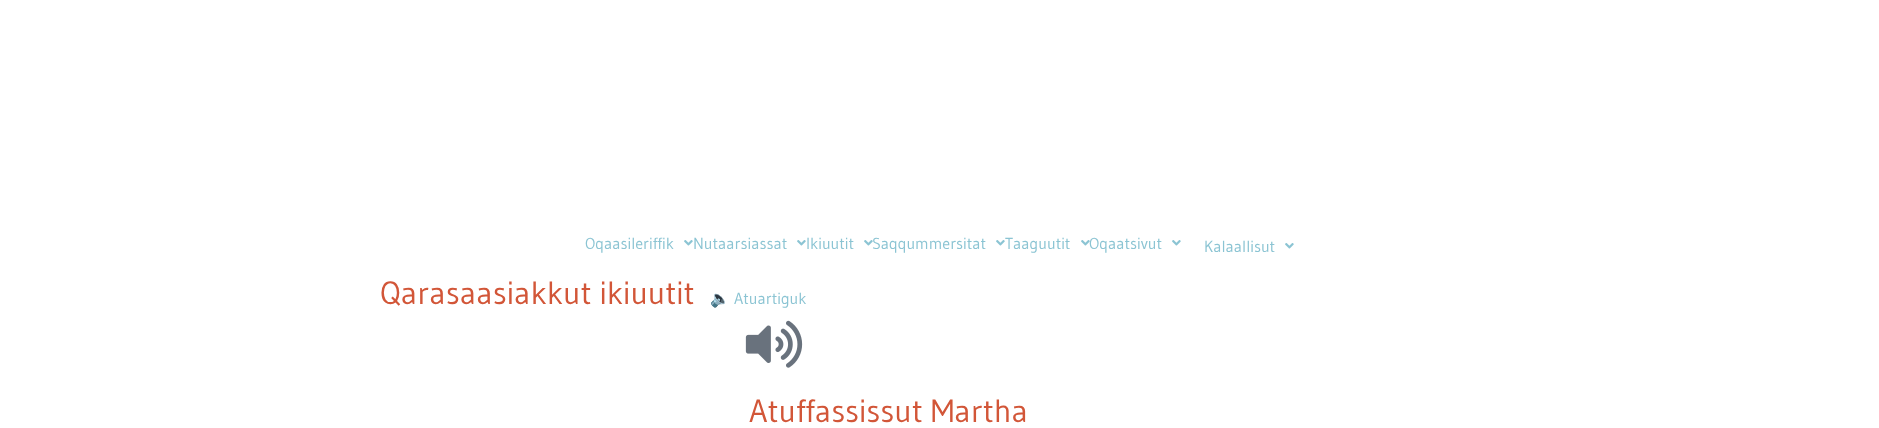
(async () => {
  const canvas = document.querySelector("canvas");
  canvas.width = 1879;
  canvas.height = 428;
  const ctx = canvas.getContext("2d");
  ctx.miterLimit = 4;
  ctx.fontKerning = "normal";
  async function loadImage(src) {
    const img = new Image();
    img.src = src;
    await img.decode();
    return img;
  }

  ctx.fillStyle = "#ffffff";
  ctx.fillRect(0, 0, 1879, 428);
  ctx.drawImage(await loadImage("img/1.png"), 684, 240, 9, 6);
  ctx.drawImage(await loadImage("img/1.png"), 797, 240, 9, 6);
  ctx.drawImage(await loadImage("img/1.png"), 864, 240, 9, 6);
  ctx.drawImage(await loadImage("img/1.png"), 996, 240, 9, 6);
  ctx.drawImage(await loadImage("img/1.png"), 1081, 240, 9, 6);
  ctx.drawImage(await loadImage("img/1.png"), 1172, 240, 9, 6);
  ctx.drawImage(await loadImage("img/1.png"), 1285, 243, 9, 6);
  ctx.drawImage(await loadImage("img/2.png"), 745, 320, 58, 48);
  ctx.font = "16px Gudea";
  ctx.fillStyle = "#8bc4d3";
  for (const [text, x, y] of [
    ["Oqaasileriffik", 585, 249],
    ["Nutaarsiassat", 693, 249],
    ["Ikiuutit", 806, 249],
    ["Saqqummersitat", 872, 249],
    ["Taaguutit", 1005, 249],
    ["Oqaatsivut", 1089, 249],
    ["Kalaallisut", 1204, 252],
  ]) {
    ctx.fillText(text, x, y);
  }
  ctx.font = "32px Gudea";
  ctx.fillStyle = "#d25638";
  ctx.fillText("Qarasaasiakkut ikiuutit", 380, 304);
  ctx.font = "16px Noto Color Emoji";
  ctx.fillStyle = "#8bc4d3";
  ctx.fillText("🔈", 710, 304);
  ctx.font = "16px Gudea";
  ctx.fillText("Atuartiguk", 734, 304);
  ctx.font = "32px Gudea";
  ctx.fillStyle = "#d25638";
  ctx.fillText("Atuffassissut Martha", 749, 422);
})();
